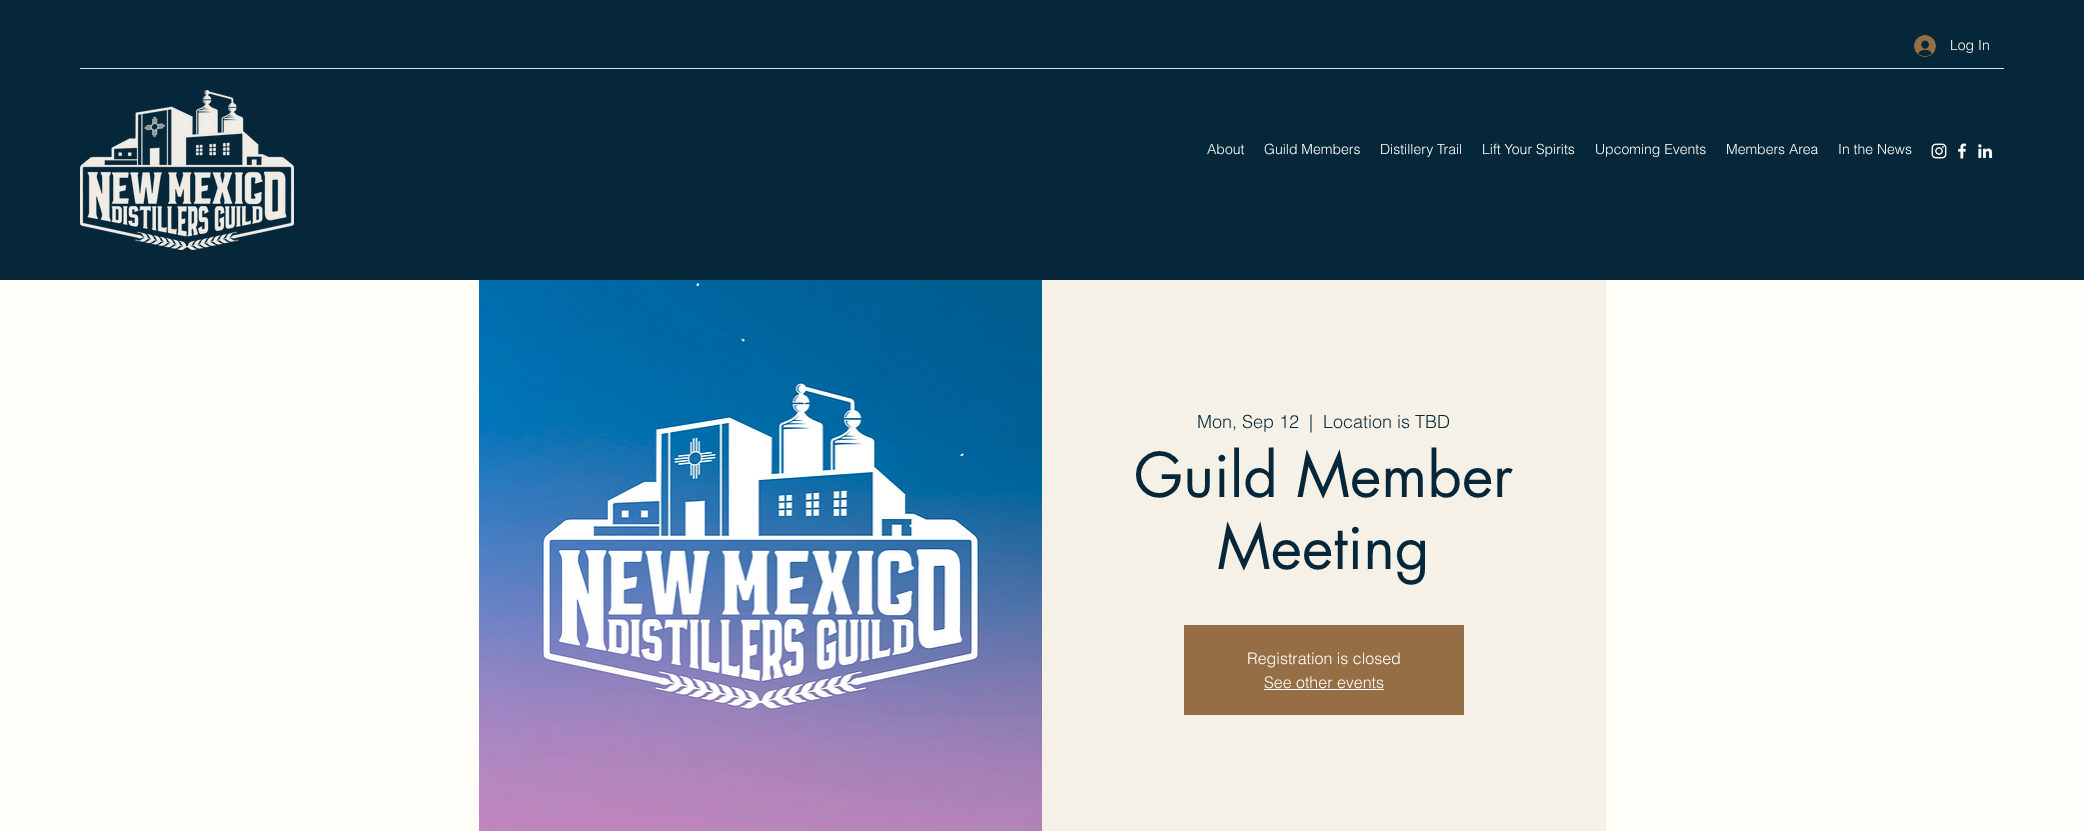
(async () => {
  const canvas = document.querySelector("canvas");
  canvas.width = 2084;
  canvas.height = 831;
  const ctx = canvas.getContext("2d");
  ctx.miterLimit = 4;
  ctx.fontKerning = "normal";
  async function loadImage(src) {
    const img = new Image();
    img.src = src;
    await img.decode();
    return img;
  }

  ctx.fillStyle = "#fffef8";
  ctx.fillRect(0, 0, 2084, 831);
  ctx.fillStyle = "#06273a";
  ctx.fillRect(0, 0, 2084, 280);
  ctx.drawImage(await loadImage("img/1.png"), 1914, 35, 22, 22);
  ctx.fillStyle = "#dadedc";
  ctx.fillRect(80, 68, 1924, 1);
  ctx.drawImage(await loadImage("img/2.png"), 80, 90, 214, 160);
  ctx.drawImage(await loadImage("img/3.png"), 1931, 143, 16, 16);
  ctx.drawImage(await loadImage("img/4.png"), 1958, 143, 9, 16);
  ctx.drawImage(await loadImage("img/5.png"), 1978, 144, 15, 15);
  ctx.drawImage(await loadImage("img/6.png"), 479, 280, 563, 551);
  for (const [x, y, w, h, color] of [
    [1042, 280, 564, 551, "#f5f1e6"],
    [1184, 625, 280, 90, "#956e46"],
    [1264, 689, 120, 1, "#fffef8"],
  ]) {
    ctx.fillStyle = color;
    ctx.fillRect(x, y, w, h);
  }
  ctx.font = "300 14px helvetica";
  for (const [text, x, y] of [
    ["Log In", 1950, 50],
    ["About", 1207, 154],
    ["Guild Members", 1264, 154],
    ["Distillery Trail", 1380, 154],
    ["Lift Your Spirits", 1482, 154],
    ["Upcoming Events", 1595, 154],
    ["Members Area", 1726, 154],
    ["In the News", 1838, 154],
  ]) {
    ctx.fillText(text, x, y);
  }
  ctx.font = "300 18px helvetica";
  ctx.fillStyle = "#06273a";
  for (const [text, x, y] of [
    ["Mon, Sep 12", 1197, 428],
    ["|", 1309, 428],
    ["Location is TBD", 1323, 428],
  ]) {
    ctx.fillText(text, x, y);
  }
  ctx.font = "60px futura";
  ctx.fillText("Guild Member", 1134, 497);
  ctx.fillText("Meeting", 1217, 569);
  ctx.font = "300 16px helvetica";
  ctx.fillStyle = "#fffef8";
  ctx.fillText("Registration is closed", 1247, 664);
  ctx.fillText("See other events", 1264, 688);
})();
